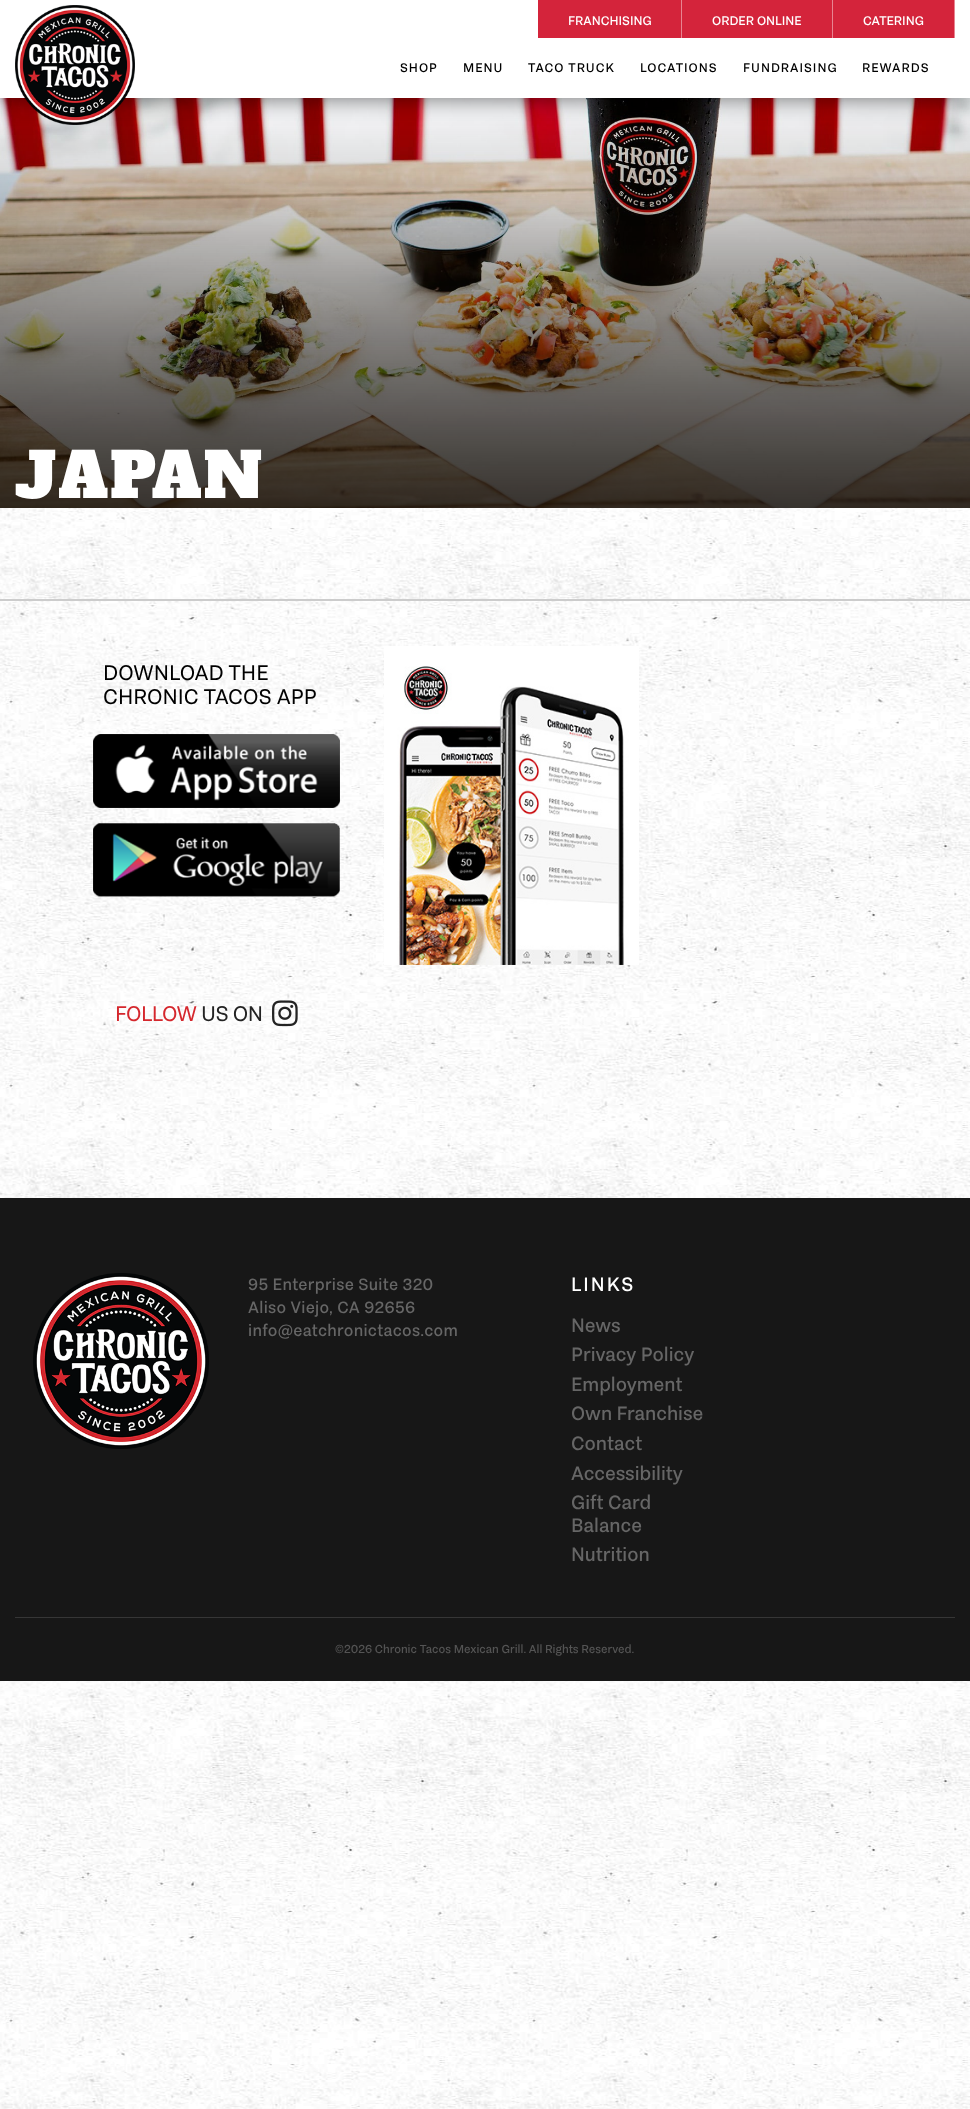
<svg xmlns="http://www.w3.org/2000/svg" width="970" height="2109">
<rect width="100%" height="100%" fill="#fff"/>
<image x="0" y="508" width="970" height="1601" href="media/1.png"/>
<image x="0" y="98" width="970" height="410" href="media/3.png"/>
<rect width="970" height="98" fill="#00000099" filter="blur(12.5px)"/>
<rect width="970" height="98" fill="#fff"/>
<image x="15" y="5" width="120" height="120" href="media/2.png"/>
<rect x="538" width="416" height="38" fill="#d4243b"/>
<rect x="681" width="1" height="38" fill="#e88491"/>
<text x="568" y="25" style="font-family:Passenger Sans;font-size:13px;font-weight:500;fill:#fff">FRANCHISING</text>
<rect x="832" width="1" height="38" fill="#e88491"/>
<text x="712" y="25" style="font-family:Passenger Sans;font-size:13px;font-weight:500;fill:#fff">ORDER ONLINE</text>
<rect x="954" width="1" height="38" fill="#e88491"/>
<text x="863" y="25" style="font-family:Passenger Sans;font-size:13px;font-weight:500;fill:#fff">CATERING</text>
<text x="400" y="72" style="font-family:Passenger Sans;font-size:13px;font-weight:500;letter-spacing:1px;fill:#000">SHOP</text>
<text x="463" y="72" style="font-family:Passenger Sans;font-size:13px;font-weight:500;letter-spacing:1px;fill:#000">MENU</text>
<text x="528" y="72" style="font-family:Passenger Sans;font-size:13px;font-weight:500;letter-spacing:1px;fill:#000">TACO TRUCK</text>
<text x="640" y="72" style="font-family:Passenger Sans;font-size:13px;font-weight:500;letter-spacing:1px;fill:#000">LOCATIONS</text>
<text x="743" y="72" style="font-family:Passenger Sans;font-size:13px;font-weight:500;letter-spacing:1px;fill:#000">FUNDRAISING</text>
<text x="862" y="72" style="font-family:Passenger Sans;font-size:13px;font-weight:500;letter-spacing:1px;fill:#000">REWARDS</text>
<text x="15" y="498" style="font-family:Alfa Slab One;font-size:62px;letter-spacing:2px;fill:#fff">JAPAN</text>
<rect y="1198" width="970" height="483" fill="#171717"/>
<image x="0" y="601" width="970" height="597" href="media/4.png"/>
<rect y="599" width="970" height="2" fill="#ccc"/>
<text x="103" y="680" style="font-family:Passenger Sans;font-size:22px;fill:#000">DOWNLOAD THE</text>
<text x="103" y="704" style="font-family:Passenger Sans;font-size:22px;fill:#000">CHRONIC TACOS APP</text>
<image x="93" y="734" width="247" height="74" href="media/5.png"/>
<image x="93" y="823" width="247" height="74" href="media/6.png"/>
<image x="384" y="646" width="255" height="319" href="media/7.png"/>
<text x="115" y="1021" style="font-family:Passenger Sans;font-size:22px;letter-spacing:-0.5px;fill:#d5272d">FOLLOW</text>
<text x="201" y="1021" style="font-family:Passenger Sans;font-size:22px;letter-spacing:-0.5px;fill:#232323">US ON</text>
<image x="272" y="1000" width="26" height="27" href="media/8.png"/>
<image x="33" y="1273" width="176" height="176" href="media/9.png"/>
<text x="248" y="1290" style="font-family:Passenger Sans;font-size:17px;font-weight:500;letter-spacing:0.3px;fill:#666">95 Enterprise Suite 320</text>
<text x="248" y="1313" style="font-family:Passenger Sans;font-size:17px;font-weight:500;letter-spacing:0.3px;fill:#666">Aliso Viejo, CA 92656</text>
<text x="248" y="1336" style="font-family:Passenger Sans;font-size:17px;font-weight:500;letter-spacing:0.3px;fill:#666">info@eatchronictacos.com</text>
<text x="571" y="1291" style="font-family:Passenger Sans;font-size:20px;font-weight:500;letter-spacing:2px;fill:#fff">LINKS</text>
<text x="571" y="1332" style="font-family:Passenger Sans;font-size:20px;font-weight:500;fill:#666">News</text>
<text x="571" y="1361" style="font-family:Passenger Sans;font-size:20px;font-weight:500;fill:#666">Privacy Policy</text>
<text x="571" y="1391" style="font-family:Passenger Sans;font-size:20px;font-weight:500;fill:#666">Employment</text>
<text x="571" y="1420" style="font-family:Passenger Sans;font-size:20px;font-weight:500;fill:#666">Own Franchise</text>
<text x="571" y="1450" style="font-family:Passenger Sans;font-size:20px;font-weight:500;fill:#666">Contact</text>
<text x="571" y="1480" style="font-family:Passenger Sans;font-size:20px;font-weight:500;fill:#666">Accessibility</text>
<text x="571" y="1509" style="font-family:Passenger Sans;font-size:20px;font-weight:500;fill:#666">Gift Card</text>
<text x="571" y="1532" style="font-family:Passenger Sans;font-size:20px;font-weight:500;fill:#666">Balance</text>
<text x="571" y="1561" style="font-family:Passenger Sans;font-size:20px;font-weight:500;fill:#666">Nutrition</text>
<rect x="15" y="1617" width="940" height="1" fill="#363636"/>
<text x="335" y="1653" style="font-family:Passenger Sans;font-size:12px;font-weight:500;fill:#545454">©2026 Chronic Tacos Mexican Grill. All Rights Reserved.</text>
</svg>
